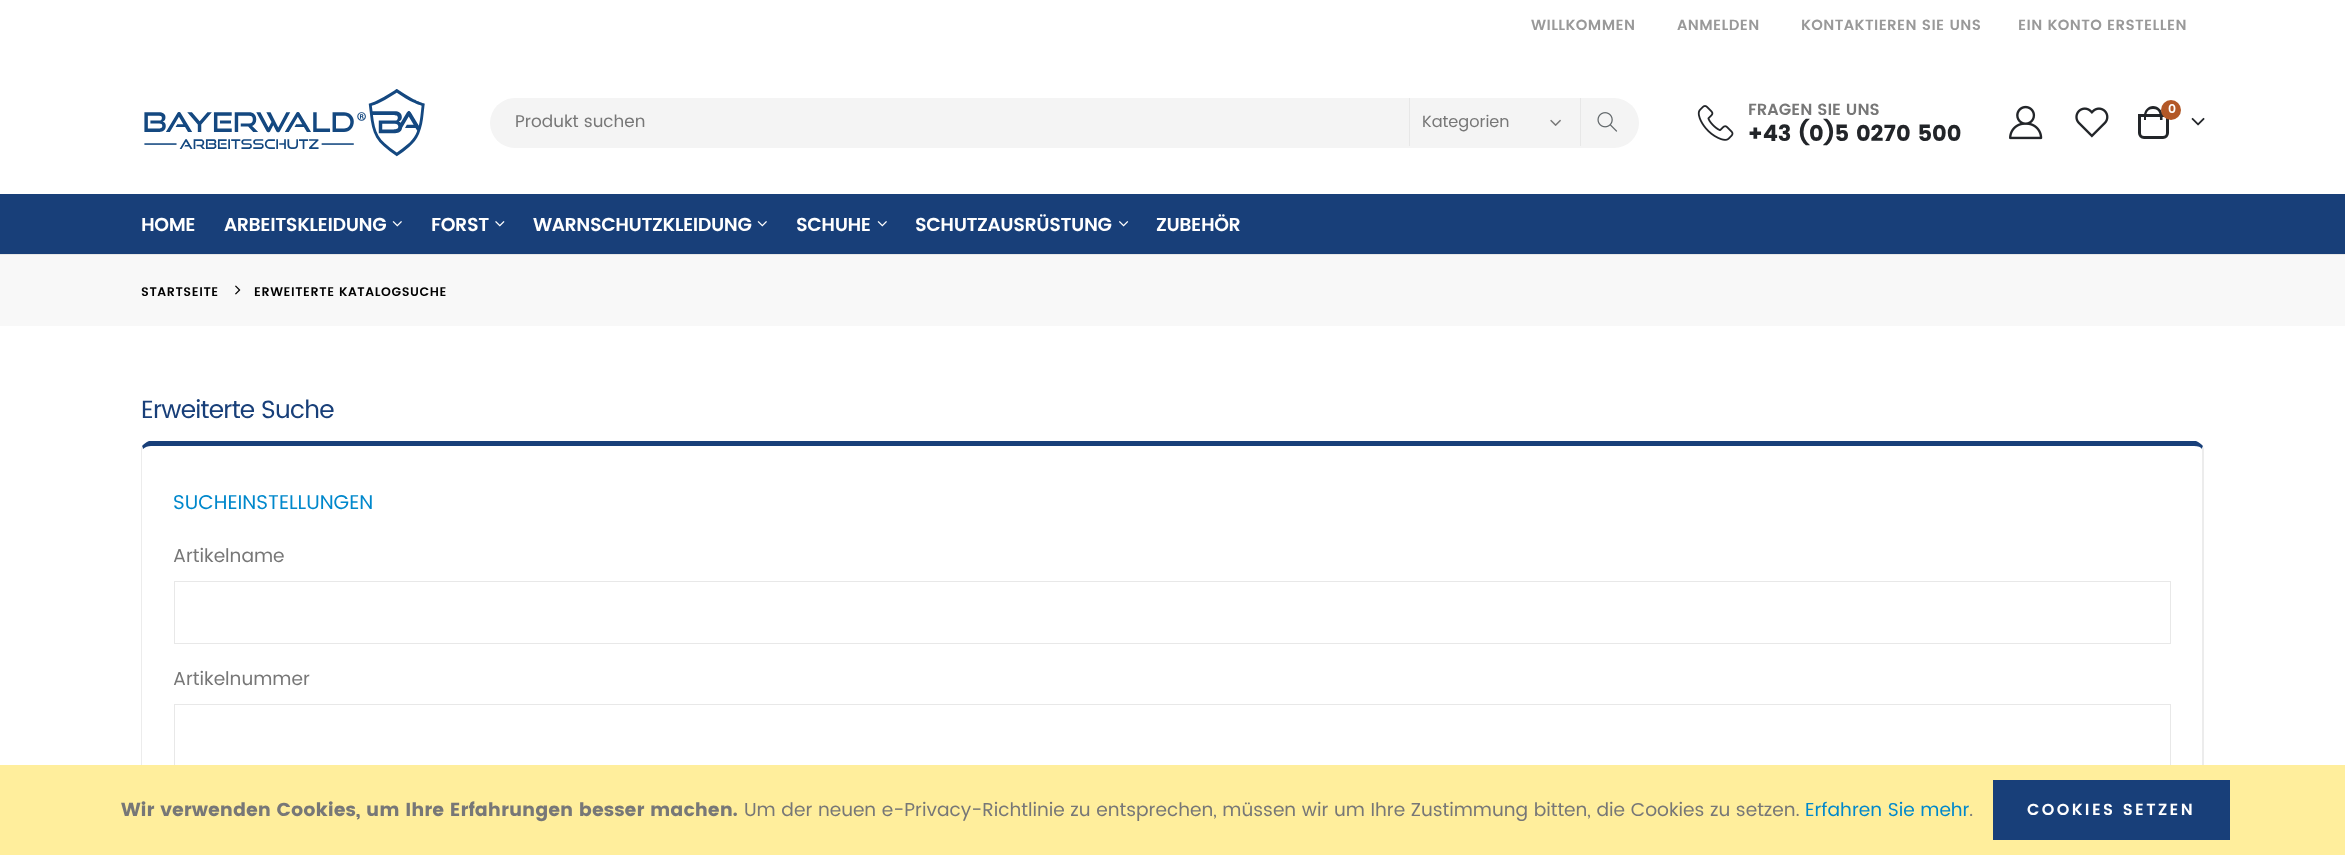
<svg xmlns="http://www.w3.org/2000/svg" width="2345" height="855">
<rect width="100%" height="100%" fill="#fff"/>
<text x="1531" y="30" style="font-family:Poppins;font-size:14.75px;font-weight:600;letter-spacing:0.4px;fill:#999">WILLKOMMEN</text>
<text x="1677" y="30" style="font-family:Poppins;font-size:14.75px;font-weight:600;letter-spacing:0.4px;fill:#999">ANMELDEN</text>
<text x="1801" y="30" style="font-family:Poppins;font-size:14.75px;font-weight:600;letter-spacing:0.4px;fill:#999">KONTAKTIEREN SIE UNS</text>
<text x="2018" y="30" style="font-family:Poppins;font-size:14.75px;font-weight:600;letter-spacing:0.4px;fill:#999">EIN KONTO ERSTELLEN</text>
<image x="144" y="89" width="281" height="68" href="media/1.png"/>
<rect x="490" y="98" width="1149" height="50" rx="25" fill="#f4f4f4"/>
<text x="515" y="127" style="font-family:Poppins;font-size:17px;fill:#777">Produkt suchen</text>
<rect x="1580" y="98" width="1" height="48" fill="#e7e7e7"/>
<rect x="1409" y="98" width="1" height="48" fill="#e7e7e7"/>
<text x="1422" y="127" style="font-family:Poppins;font-size:16.25px;fill:#777">Kategorien</text>
<image x="1550" y="119" width="11" height="7" href="media/2.png"/>
<image x="1597" y="112" width="21" height="20" href="media/3.png"/>
<image x="1697" y="105" width="37" height="36" href="media/4.png"/>
<text x="1748" y="115" style="font-family:Poppins;font-size:16.25px;font-weight:600;fill:#777">FRAGEN SIE UNS</text>
<text x="1748" y="141" style="font-family:Poppins;font-size:22.5px;font-weight:bold;fill:#222529">+43 (0)5 0270 500</text>
<image x="2009" y="105" width="34" height="35" href="media/5.png"/>
<image x="2075" y="107" width="34" height="31" href="media/6.png"/>
<path d="M2139.5 115.5h28v17.5c0 2.5-2 4.5-4.5 4.5h-19c-2.5 0-4.5-2-4.5-4.5z" fill="none" stroke="#222529" stroke-width="3"/>
<path d="M2153 106c5.5 0 9.5 4.5 9.5 9.5v4.5h-18.5v-4.5c0-5 4-9.5 9-9.5zm0 3c7 0 7 6 7 11h-14c0-5 0-11 7-11z" fill="#222529" fill-rule="evenodd"/>
<circle cx="2171" cy="110" r="10" fill="#b35827"/>
<text x="2168" y="113" style="font-family:Poppins;font-size:12.5px;font-weight:600;fill:#fff">0</text>
<image x="2191" y="117" width="14" height="9" href="media/7.png"/>
<rect y="194" width="2345" height="60" fill="#183f79"/>
<text x="141" y="231" style="font-family:Poppins;font-size:18.75px;font-weight:600;letter-spacing:-0.4px;fill:#fff">HOME</text>
<text x="224" y="231" style="font-family:Poppins;font-size:18.75px;font-weight:600;letter-spacing:-0.4px;fill:#fff">ARBEITSKLEIDUNG</text>
<image x="392" y="221" width="10" height="6" href="media/8.png"/>
<text x="431" y="231" style="font-family:Poppins;font-size:18.75px;font-weight:600;letter-spacing:-0.4px;fill:#fff">FORST</text>
<image x="495" y="221" width="10" height="6" href="media/9.png"/>
<text x="533" y="231" style="font-family:Poppins;font-size:18.75px;font-weight:600;letter-spacing:-0.4px;fill:#fff">WARNSCHUTZKLEIDUNG</text>
<image x="757" y="221" width="10" height="6" href="media/8.png"/>
<text x="796" y="231" style="font-family:Poppins;font-size:18.75px;font-weight:600;letter-spacing:-0.4px;fill:#fff">SCHUHE</text>
<image x="877" y="221" width="10" height="6" href="media/8.png"/>
<text x="915" y="231" style="font-family:Poppins;font-size:18.75px;font-weight:600;letter-spacing:-0.4px;fill:#fff">SCHUTZAUSRÜSTUNG</text>
<image x="1119" y="221" width="10" height="6" href="media/10.png"/>
<text x="1156" y="231" style="font-family:Poppins;font-size:18.75px;font-weight:600;letter-spacing:-0.4px;fill:#fff">ZUBEHÖR</text>
<rect y="255" width="2345" height="71" fill="#f8f8f8"/>
<rect y="254" width="2345" height="1" fill="#e7e7e7"/>
<text x="141" y="296" style="font-family:Poppins;font-size:12.5px;font-weight:600;letter-spacing:0.6px;fill:#000">STARTSEITE</text>
<image x="235" y="285" width="6" height="10" href="media/11.png"/>
<text x="254" y="296" style="font-family:Poppins;font-size:12.5px;font-weight:600;letter-spacing:0.6px;fill:#000">ERWEITERTE KATALOGSUCHE</text>
<text x="141" y="418" style="font-family:Poppins;font-size:25px;letter-spacing:-0.75px;fill:#183f79">Erweiterte Suche</text>
<path d="M151 446c-3 0-6 1-8 3l-1-3c2-2 4-4 7-5h2047c3 1 5 3 7 5l-1 3c-1-2-4-3-8-3z" fill="#183f79"/>
<path d="M2204 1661c-1 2-2 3-3 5l-1-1c1-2 2-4 2-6v-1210l1-3l1 3z" fill="#ececec"/>
<path d="M141 449l1-3l1 3c-1 0-1 1-1 2v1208c0 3 1 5 3 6l-1 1c-1-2-2-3-3-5z" fill="#ececec"/>
<text x="173" y="509" style="font-family:Poppins;font-size:20px;fill:#08c">SUCHEINSTELLUNGEN</text>
<text x="173" y="562" style="font-family:Poppins;font-size:18.75px;fill:#777">Artikelname</text>
<rect x="174.5" y="581.5" width="1996" height="62" fill="none" stroke="#e8e8e8"/>
<text x="173" y="685" style="font-family:Poppins;font-size:18.75px;fill:#777">Artikelnummer</text>
<rect x="174.5" y="704.5" width="1996" height="61" fill="none" stroke="#e8e8e8"/>
<rect y="765" width="2345" height="90" fill="#ffee9c"/>
<text x="121" y="816" style="font-family:Poppins;font-size:18.75px;font-weight:bold;fill:#777">Wir verwenden Cookies, um Ihre Erfahrungen besser machen.</text>
<text x="744" y="816" style="font-family:Poppins;font-size:18.75px;fill:#777">Um der neuen e-Privacy-Richtlinie zu entsprechen, müssen wir um Ihre Zustimmung bitten, die Cookies zu setzen.</text>
<text x="1805" y="816" style="font-family:Poppins;font-size:18.75px;fill:#08c">Erfahren Sie mehr</text>
<text x="1969" y="816" style="font-family:Poppins;font-size:18.75px;fill:#777">.</text>
<rect x="1993" y="780" width="237" height="60" fill="#183f79"/>
<text x="2027" y="815" style="font-family:Poppins;font-size:16px;font-weight:600;letter-spacing:2.4px;fill:#fff">COOKIES SETZEN</text>
</svg>
